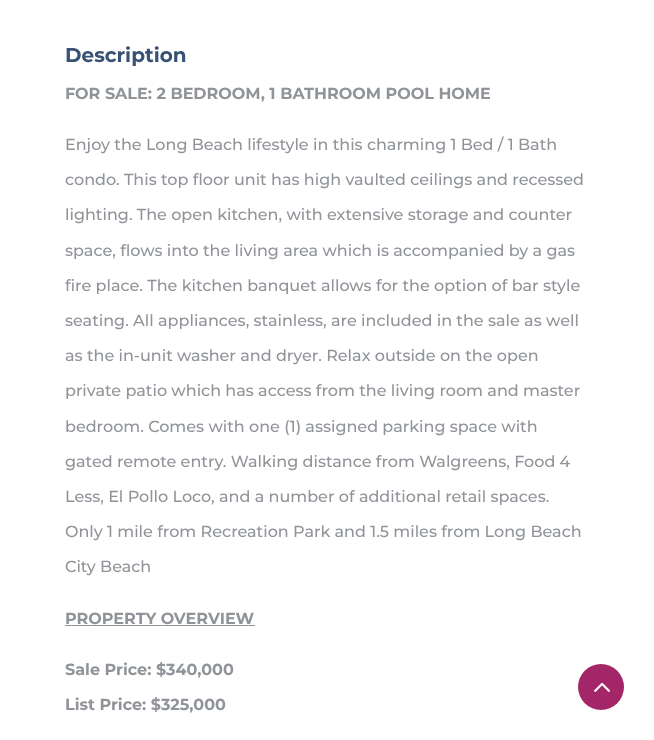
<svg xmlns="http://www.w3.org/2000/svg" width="654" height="740">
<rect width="100%" height="100%" fill="#fff"/>
<text x="65" y="62" style="font-family:Montserrat;font-size:20px;font-weight:100;fill:#375274">Description</text>
<text x="65" y="99" style="font-family:Montserrat;font-size:16px;font-weight:100;fill:#909499">FOR SALE: 2 BEDROOM, 1 BATHROOM POOL HOME</text>
<text x="65" y="150" style="font-family:'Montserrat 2';font-size:16px;font-weight:100;fill:#909499">Enjoy the Long Beach lifestyle in this charming 1 Bed / 1 Bath</text>
<text x="65" y="185" style="font-family:'Montserrat 2';font-size:16px;font-weight:100;fill:#909499">condo. This top floor unit has high vaulted ceilings and recessed</text>
<text x="65" y="220" style="font-family:'Montserrat 2';font-size:16px;font-weight:100;fill:#909499">lighting. The open kitchen, with extensive storage and counter</text>
<text x="65" y="256" style="font-family:'Montserrat 2';font-size:16px;font-weight:100;fill:#909499">space, flows into the living area which is accompanied by a gas</text>
<text x="65" y="291" style="font-family:'Montserrat 2';font-size:16px;font-weight:100;fill:#909499">fire place. The kitchen banquet allows for the option of bar style</text>
<text x="65" y="326" style="font-family:'Montserrat 2';font-size:16px;font-weight:100;fill:#909499">seating. All appliances, stainless, are included in the sale as well</text>
<text x="65" y="361" style="font-family:'Montserrat 2';font-size:16px;font-weight:100;fill:#909499">as the in-unit washer and dryer. Relax outside on the open</text>
<text x="65" y="396" style="font-family:'Montserrat 2';font-size:16px;font-weight:100;fill:#909499">private patio which has access from the living room and master</text>
<text x="65" y="432" style="font-family:'Montserrat 2';font-size:16px;font-weight:100;fill:#909499">bedroom. Comes with one (1) assigned parking space with</text>
<text x="65" y="467" style="font-family:'Montserrat 2';font-size:16px;font-weight:100;fill:#909499">gated remote entry. Walking distance from Walgreens, Food 4</text>
<text x="65" y="502" style="font-family:'Montserrat 2';font-size:16px;font-weight:100;fill:#909499">Less, El Pollo Loco, and a number of additional retail spaces.</text>
<text x="65" y="537" style="font-family:'Montserrat 2';font-size:16px;font-weight:100;fill:#909499">Only 1 mile from Recreation Park and 1.5 miles from Long Beach</text>
<text x="65" y="572" style="font-family:'Montserrat 2';font-size:16px;font-weight:100;fill:#909499">City Beach</text>
<text x="65" y="624" style="font-family:Montserrat;font-size:16px;font-weight:100;fill:#909499">PROPERTY OVERVIEW</text>
<rect x="65" y="625" width="190" height="1" fill="#909499"/>
<text x="65" y="675" style="font-family:Montserrat;font-size:16px;font-weight:100;fill:#909499">Sale Price: $340,000</text>
<text x="65" y="710" style="font-family:Montserrat;font-size:16px;font-weight:100;fill:#909499">List Price: $325,000</text>
<circle cx="601" cy="687" r="23" fill="#a32668"/>
<image x="594" y="682" width="16" height="10" href="media/1.png"/>
</svg>
